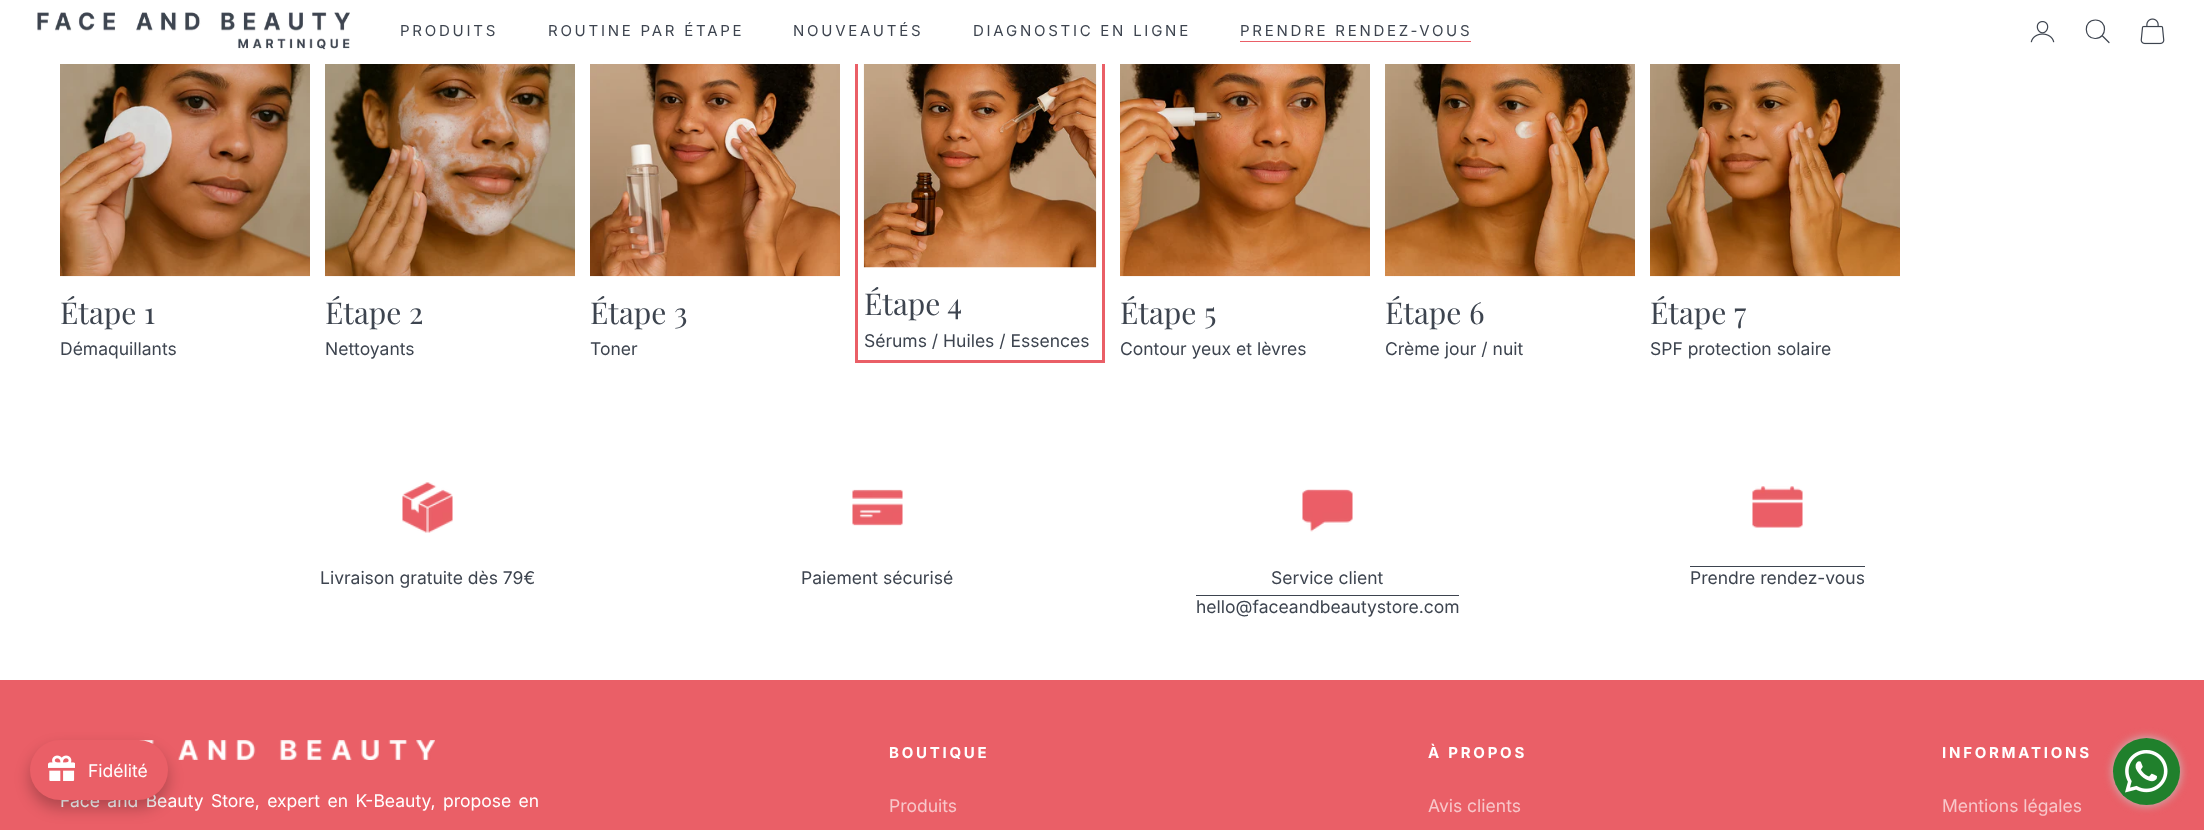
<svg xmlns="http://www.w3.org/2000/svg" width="2204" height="830">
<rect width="100%" height="100%" fill="#fff"/>
<rect x="856.5" y="27.5" width="247" height="334" fill="none" stroke="#ea5f67" stroke-width="3"/>
<rect x="855" y="26" width="250" height="38" fill="#fff"/>
<image x="37" y="12" width="313" height="38" href="media/1.png"/>
<text x="400" y="36" style="font-family:Inter;font-size:15px;letter-spacing:2.75px;fill:#3d444f">PRODUITS</text>
<text x="548" y="36" style="font-family:Inter;font-size:15px;letter-spacing:2.75px;fill:#3d444f">ROUTINE PAR ÉTAPE</text>
<text x="793" y="36" style="font-family:Inter;font-size:15px;letter-spacing:2.75px;fill:#3d444f">NOUVEAUTÉS</text>
<text x="973" y="36" style="font-family:Inter;font-size:15px;letter-spacing:2.75px;fill:#3d444f">DIAGNOSTIC EN LIGNE</text>
<text x="1240" y="36" style="font-family:Inter;font-size:15px;letter-spacing:2.75px;fill:#3d444f">PRENDRE RENDEZ-VOUS</text>
<rect x="1240" y="41" width="231" height="1" fill="#ea5f67"/>
<image x="2030" y="21" width="25" height="22" href="media/2.png"/>
<path d="M2095.5 20c-12.5 0-12 19 0 18.5c12-.5 12-18.5 0-18.5z" fill="none" stroke="#3d444f" stroke-width="1.2"/>
<path d="M2102.5 36l6.5 6.5" fill="none" stroke="#3d444f" stroke-width="1.2" stroke-linecap="round"/>
<image x="2140" y="18" width="25" height="27" href="media/3.png"/>
<image x="60" y="64" width="250" height="213" href="media/4.png"/>
<text x="60" y="324" style="font-family:Playfair Display;font-size:30px;fill:#3d444f">Étape 1</text>
<text x="60" y="355" style="font-family:Inter;font-size:17.5px;fill:#3d444f">Démaquillants</text>
<image x="325" y="64" width="250" height="213" href="media/5.png"/>
<text x="325" y="324" style="font-family:Playfair Display;font-size:30px;fill:#3d444f">Étape 2</text>
<text x="325" y="355" style="font-family:Inter;font-size:17.5px;fill:#3d444f">Nettoyants</text>
<image x="590" y="64" width="250" height="213" href="media/6.png"/>
<text x="590" y="324" style="font-family:Playfair Display;font-size:30px;fill:#3d444f">Étape 3</text>
<text x="590" y="355" style="font-family:Inter;font-size:17.5px;fill:#3d444f">Toner</text>
<image x="863" y="64" width="234" height="204" href="media/7.png"/>
<text x="864" y="315" style="font-family:Playfair Display;font-size:30px;fill:#3d444f">Étape 4</text>
<text x="864" y="347" style="font-family:Inter;font-size:17.5px;fill:#3d444f">Sérums / Huiles / Essences</text>
<image x="1120" y="64" width="250" height="213" href="media/8.png"/>
<text x="1120" y="324" style="font-family:Playfair Display;font-size:30px;fill:#3d444f">Étape 5</text>
<text x="1120" y="355" style="font-family:Inter;font-size:17.5px;fill:#3d444f">Contour yeux et lèvres</text>
<image x="1385" y="64" width="250" height="213" href="media/9.png"/>
<text x="1385" y="324" style="font-family:Playfair Display;font-size:30px;fill:#3d444f">Étape 6</text>
<text x="1385" y="355" style="font-family:Inter;font-size:17.5px;fill:#3d444f">Crème jour / nuit</text>
<image x="1650" y="64" width="250" height="213" href="media/10.png"/>
<text x="1650" y="324" style="font-family:Playfair Display;font-size:30px;fill:#3d444f">Étape 7</text>
<text x="1650" y="355" style="font-family:Inter;font-size:17.5px;fill:#3d444f">SPF protection solaire</text>
<image x="402" y="482" width="51" height="51" href="media/11.png"/>
<text x="320" y="584" style="font-family:Inter;font-size:17.5px;fill:#3d444f">Livraison gratuite dès 79€</text>
<image x="852" y="489" width="51" height="37" href="media/12.png"/>
<text x="801" y="584" style="font-family:Inter;font-size:17.5px;fill:#3d444f">Paiement sécurisé</text>
<image x="1302" y="489" width="51" height="43" href="media/13.png"/>
<text x="1271" y="584" style="font-family:Inter;font-size:17.5px;fill:#3d444f">Service client</text>
<text x="1196" y="613" style="font-family:Inter;font-size:17.5px;fill:#3d444f">hello@faceandbeautystore.com</text>
<rect x="1196" y="595" width="263" height="1" fill="#3d444f"/>
<image x="1752" y="486" width="51" height="42" href="media/14.png"/>
<text x="1690" y="584" style="font-family:Inter;font-size:17.5px;fill:#3d444f">Prendre rendez-vous</text>
<rect x="1690" y="566" width="175" height="1" fill="#3d444f"/>
<rect y="680" width="2204" height="150" fill="#ea5f67"/>
<image x="138" y="740" width="297" height="20" href="media/15.png"/>
<text x="60" y="807" word-spacing="2.5" style="font-family:Inter;font-size:17.5px;fill:#fff">Face and Beauty Store, expert en K-Beauty, propose en</text>
<text x="889" y="758" style="font-family:Inter;font-size:15px;font-weight:bold;letter-spacing:2.75px;fill:#fff">BOUTIQUE</text>
<text x="889" y="812" style="font-family:Inter;font-size:17.5px;fill:#f8c7ca">Produits</text>
<text x="1428" y="758" style="font-family:Inter;font-size:15px;font-weight:bold;letter-spacing:2.75px;fill:#fff">À PROPOS</text>
<text x="1428" y="812" style="font-family:Inter;font-size:17.5px;fill:#f8c7ca">Avis clients</text>
<text x="1942" y="758" style="font-family:Inter;font-size:15px;font-weight:bold;letter-spacing:2.75px;fill:#fff">INFORMATIONS</text>
<text x="1942" y="812" style="font-family:Inter;font-size:17.5px;fill:#f8c7ca">Mentions légales</text>
<rect x="2113" y="738" width="67" height="67" rx="33.5" fill="#c2c2c2" filter="blur(5px)"/>
<circle cx="2146.5" cy="771.5" r="33.5" fill="#20802c"/>
<image x="2125" y="750" width="43" height="43" href="media/16.png"/>
<rect x="30" y="748" width="138" height="60" rx="30" fill="#00000040" filter="blur(7.5px)"/>
<rect x="30" y="740" width="138" height="60" rx="30" fill="#ea5f67"/>
<image x="48" y="755" width="27" height="26" href="media/17.png"/>
<text x="88" y="777" style="font-family:Inter;font-size:17.5px;fill:#fff">Fidélité</text>
</svg>
